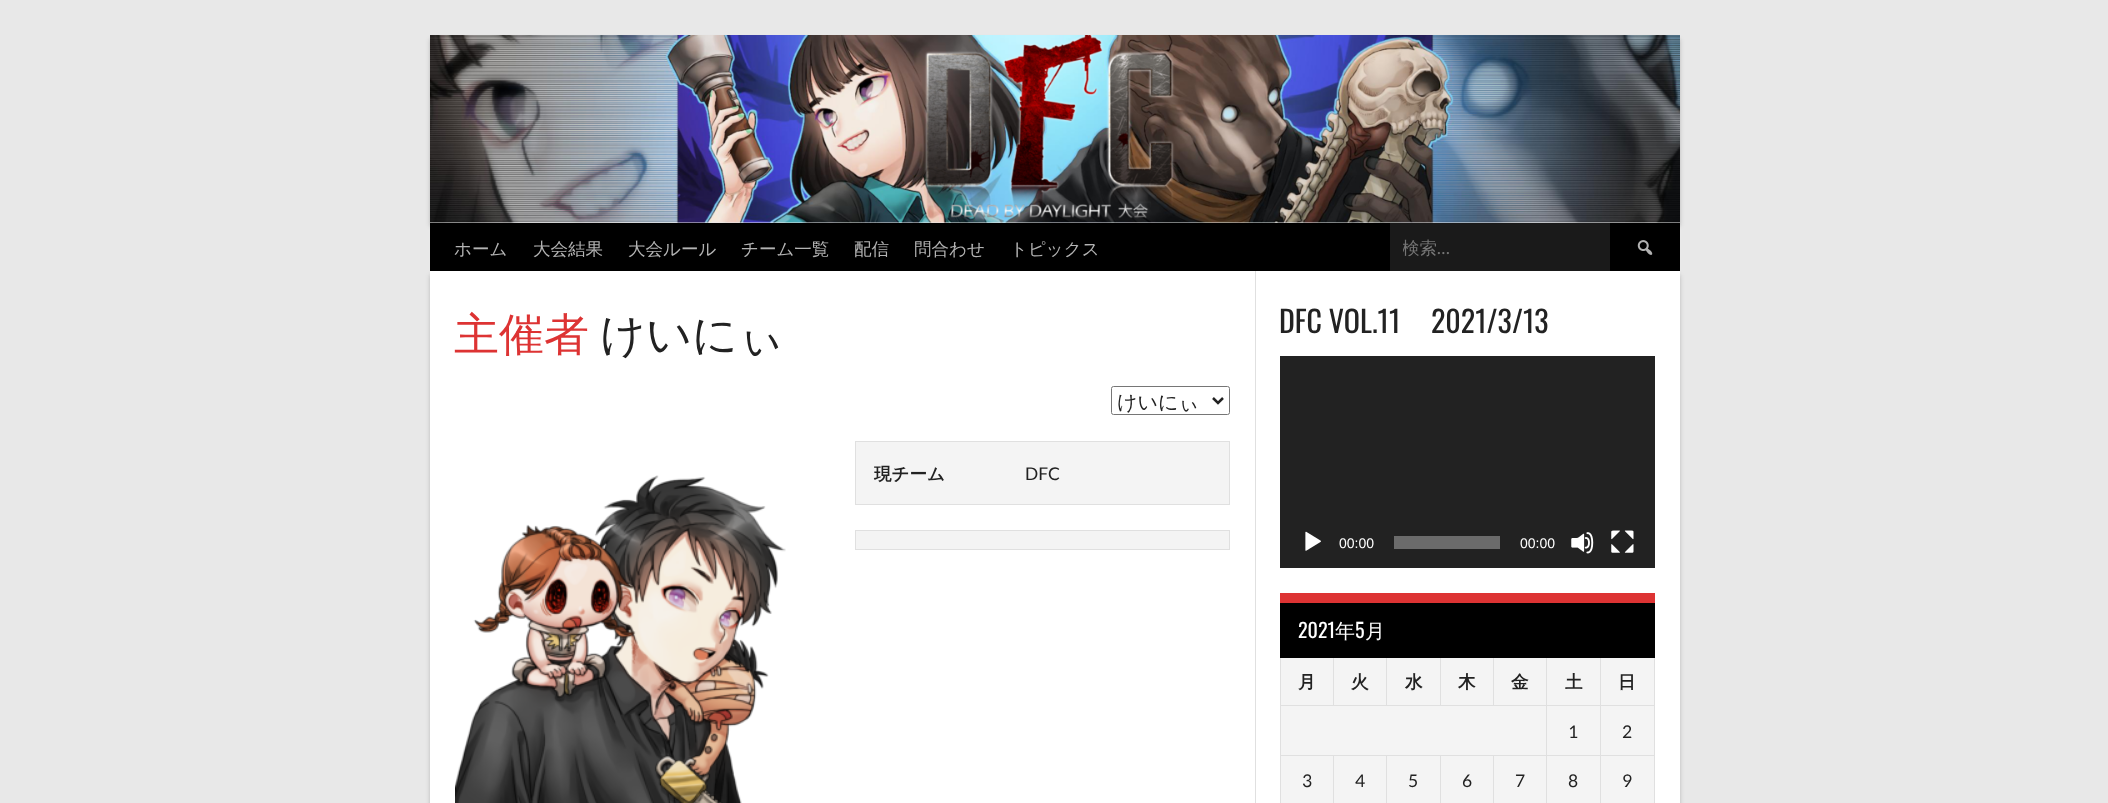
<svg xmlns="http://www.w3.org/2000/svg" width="2108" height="803">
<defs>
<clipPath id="clip1"><path d="M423 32h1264v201h-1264zm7 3h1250v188h-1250z" clip-rule="evenodd"/></clipPath>
<clipPath id="clip2"><rect x="1403" y="236" width="177" height="24"/></clipPath>
</defs>
<rect width="100%" height="100%" fill="#e8e8e8"/>
<image x="430" y="35" width="1250" height="188" href="media/1.png"/>
<g clip-path="url(#clip1)">
<rect x="430" y="39" width="1250" height="187" fill="#00000033" filter="blur(2px)"/>
</g>
<rect x="430" y="275" width="1250" height="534" fill="#00000033" filter="blur(2px)"/>
<rect x="430" y="223" width="1250" height="48" fill="#000"/>
<text x="454" y="255" style="font-family:WenQuanYi Zen Hei;font-size:17.5px;font-weight:500;fill:#b3b3b3">ホーム</text>
<text x="533" y="255" style="font-family:WenQuanYi Zen Hei;font-size:17.5px;font-weight:500;fill:#b3b3b3">大会結果</text>
<text x="628" y="255" style="font-family:WenQuanYi Zen Hei;font-size:17.5px;font-weight:500;fill:#b3b3b3">大会ルール</text>
<text x="741" y="255" style="font-family:WenQuanYi Zen Hei;font-size:17.5px;font-weight:500;fill:#b3b3b3">チーム一覧</text>
<text x="854" y="255" style="font-family:WenQuanYi Zen Hei;font-size:17.5px;font-weight:500;fill:#b3b3b3">配信</text>
<text x="914" y="255" style="font-family:WenQuanYi Zen Hei;font-size:17.5px;font-weight:500;fill:#b3b3b3">問合わせ</text>
<text x="1010" y="255" style="font-family:WenQuanYi Zen Hei;font-size:17.5px;font-weight:500;fill:#b3b3b3">トピックス</text>
<rect x="1390" y="223" width="220" height="48" fill="#1a1a1a"/>
<g clip-path="url(#clip2)">
<text x="1402" y="254" style="font-family:WenQuanYi Zen Hei;font-size:17.5px;font-weight:500;fill:#757575">検索</text>
</g>
<text x="1437" y="254" style="font-family:Lato;font-size:17.5px;fill:#757575">…</text>
<image x="1637" y="240" width="16" height="15" href="media/2.png"/>
<rect x="430" y="271" width="1250" height="532" fill="#fff"/>
<path d="M431 271h824v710h1v-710z" fill="#e0e0e0"/>
<text x="454" y="350" style="font-family:WenQuanYi Zen Hei;font-size:45px;font-weight:500;fill:#d33">主催者</text>
<text x="600" y="350" style="font-family:WenQuanYi Zen Hei;font-size:45px;font-weight:500;fill:#222">けいにぃ</text>
<rect x="1111.5" y="386.5" width="118" height="28" rx="2" fill="none" stroke="#767676"/>
<path d="M1213 398l5 5l5-5" fill="none" stroke="#222" stroke-width="2.5"/>
<text x="1117" y="409" style="font-family:WenQuanYi Zen Hei;font-size:20px;font-weight:500;fill:#222">けいにぃ</text>
<image x="455" y="475" width="331" height="328" href="media/3.png"/>
<rect x="855.5" y="441.5" width="374" height="63" fill="#f4f4f4" stroke="#e0e0e0"/>
<text x="874" y="480" style="font-family:WenQuanYi Zen Hei;font-size:17.5px;font-weight:bold;fill:#222">現チーム</text>
<text x="1025" y="480" style="font-family:Lato;font-size:17.5px;fill:#222">DFC</text>
<rect x="855.5" y="530.5" width="374" height="19" fill="#f4f4f4" stroke="#e0e0e0"/>
<text x="1279" y="333" style="font-family:Oswald;font-size:30px;fill:#222">DFC VOL.11</text>
<text x="1431" y="333" style="font-family:Oswald;font-size:30px;fill:#222">2021/3/13</text>
<rect x="1280" y="356" width="375" height="212" fill="#222"/>
<image x="1305" y="531" width="16" height="20" href="media/4.png"/>
<text x="1339" y="548" style="font-family:Liberation Sans;font-size:14px;fill:#fff">00:00</text>
<rect x="1394" y="536" width="106" height="13" fill="#6b6b6b"/>
<text x="1520" y="548" style="font-family:Liberation Sans;font-size:14px;fill:#fff">00:00</text>
<image x="1571" y="532" width="23" height="22" href="media/5.png"/>
<image x="1611" y="530" width="23" height="23" href="media/6.png"/>
<rect x="1281" y="658" width="373" height="145" fill="#f4f4f4"/>
<rect x="1654" y="658" width="1" height="145" fill="#e0e0e0"/>
<rect x="1280" y="658" width="1" height="145" fill="#e0e0e0"/>
<rect x="1600" y="705" width="55" height="1" fill="#e0e0e0"/>
<rect x="1600" y="755" width="55" height="1" fill="#e0e0e0"/>
<rect x="1600" y="755" width="1" height="48" fill="#e0e0e0"/>
<rect x="1546" y="755" width="55" height="1" fill="#e0e0e0"/>
<rect x="1600" y="705" width="1" height="51" fill="#e0e0e0"/>
<rect x="1546" y="705" width="55" height="1" fill="#e0e0e0"/>
<rect x="1546" y="755" width="1" height="48" fill="#e0e0e0"/>
<rect x="1493" y="755" width="55" height="1" fill="#e0e0e0"/>
<rect x="1546" y="705" width="1" height="51" fill="#e0e0e0"/>
<rect x="1280" y="705" width="268" height="1" fill="#e0e0e0"/>
<rect x="1333" y="656" width="1" height="50" fill="#e0e0e0"/>
<rect x="1386" y="656" width="1" height="50" fill="#e0e0e0"/>
<rect x="1440" y="656" width="1" height="50" fill="#e0e0e0"/>
<rect x="1493" y="656" width="1" height="50" fill="#e0e0e0"/>
<rect x="1546" y="656" width="1" height="50" fill="#e0e0e0"/>
<rect x="1600" y="656" width="1" height="50" fill="#e0e0e0"/>
<rect x="1280" y="603" width="375" height="55" fill="#000"/>
<rect x="1280" y="593" width="375" height="10" fill="#d33"/>
<text x="1298" y="638" style="font-family:Oswald;font-size:20px;fill:#fff">2021</text>
<text x="1335" y="638" style="font-family:WenQuanYi Zen Hei;font-size:20px;font-weight:500;fill:#fff">年</text>
<text x="1355" y="638" style="font-family:Oswald;font-size:20px;fill:#fff">5</text>
<text x="1365" y="638" style="font-family:WenQuanYi Zen Hei;font-size:20px;font-weight:500;fill:#fff">月</text>
<text x="1298" y="688" style="font-family:WenQuanYi Zen Hei;font-size:17.5px;font-weight:bold;fill:#222">月</text>
<text x="1351" y="688" style="font-family:WenQuanYi Zen Hei;font-size:17.5px;font-weight:bold;fill:#222">火</text>
<text x="1405" y="688" style="font-family:WenQuanYi Zen Hei;font-size:17.5px;font-weight:bold;fill:#222">水</text>
<text x="1458" y="688" style="font-family:WenQuanYi Zen Hei;font-size:17.5px;font-weight:bold;fill:#222">木</text>
<text x="1511" y="688" style="font-family:WenQuanYi Zen Hei;font-size:17.5px;font-weight:bold;fill:#222">金</text>
<text x="1565" y="688" style="font-family:WenQuanYi Zen Hei;font-size:17.5px;font-weight:bold;fill:#222">土</text>
<text x="1618" y="688" style="font-family:WenQuanYi Zen Hei;font-size:17.5px;font-weight:bold;fill:#222">日</text>
<text x="1568" y="738" style="font-family:Lato;font-size:17.5px;fill:#222">1</text>
<text x="1622" y="738" style="font-family:Lato;font-size:17.5px;fill:#222">2</text>
<rect x="1493" y="755" width="1" height="48" fill="#e0e0e0"/>
<rect x="1440" y="755" width="54" height="1" fill="#e0e0e0"/>
<rect x="1440" y="755" width="1" height="48" fill="#e0e0e0"/>
<rect x="1386" y="755" width="55" height="1" fill="#e0e0e0"/>
<rect x="1386" y="755" width="1" height="48" fill="#e0e0e0"/>
<rect x="1333" y="755" width="55" height="1" fill="#e0e0e0"/>
<rect x="1333" y="755" width="1" height="48" fill="#e0e0e0"/>
<rect x="1280" y="755" width="54" height="1" fill="#e0e0e0"/>
<text x="1302" y="787" style="font-family:Lato;font-size:17.5px;fill:#222">3</text>
<text x="1355" y="787" style="font-family:Lato;font-size:17.5px;fill:#222">4</text>
<text x="1408" y="787" style="font-family:Lato;font-size:17.5px;fill:#222">5</text>
<text x="1462" y="787" style="font-family:Lato;font-size:17.5px;fill:#222">6</text>
<text x="1515" y="787" style="font-family:Lato;font-size:17.5px;fill:#222">7</text>
<text x="1568" y="787" style="font-family:Lato;font-size:17.5px;fill:#222">8</text>
<text x="1622" y="787" style="font-family:Lato;font-size:17.5px;fill:#222">9</text>
</svg>
